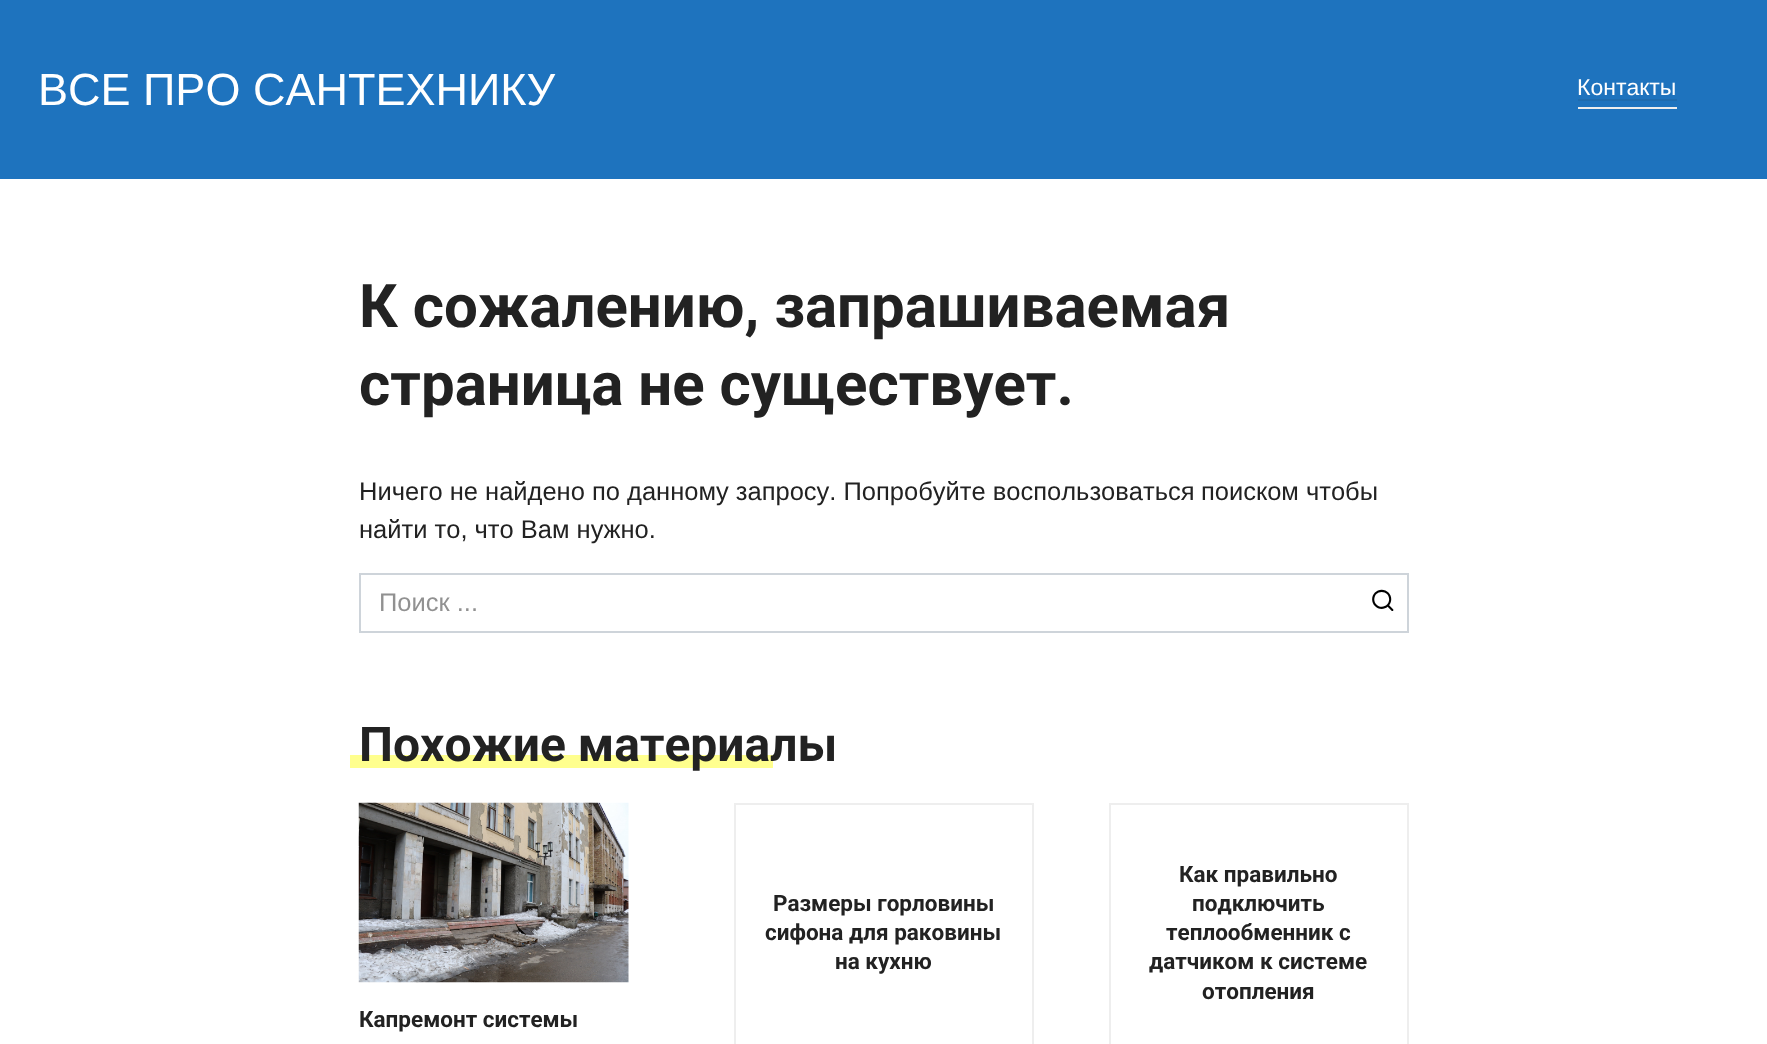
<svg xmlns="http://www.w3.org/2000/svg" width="1767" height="1044">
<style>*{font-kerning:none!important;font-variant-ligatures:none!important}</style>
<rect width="100%" height="100%" fill="#fff"/>
<rect width="1767" height="179" fill="#1e73be"/>
<text x="38" y="105" style="font-family:Liberation Sans;font-size:45px;fill:#fff">ВСЕ ПРО САНТЕХНИКУ</text>
<rect x="1578" y="107" width="99" height="2" fill="#eee"/>
<text x="1577" y="95" style="font-family:Liberation Sans;font-size:23px;fill:#fff">Контакты</text>
<rect x="1578" y="99" width="99" height="2" fill="#1e6bae"/>
<text x="359" y="327" style="font-family:Roboto;font-size:60px;font-weight:bold;fill:#222">К сожалению, запрашиваемая</text>
<text x="359" y="405" style="font-family:Roboto;font-size:60px;font-weight:bold;fill:#222">страница не существует.</text>
<text x="359" y="500" style="font-family:Liberation Sans;font-size:25.5px;fill:#222">Ничего не найдено по данному запросу. Попробуйте воспользоваться</text>
<text x="1201" y="500" style="font-family:Liberation Sans;font-size:25.5px;fill:#222">поиском чтобы</text>
<text x="359" y="538" style="font-family:Liberation Sans;font-size:25.5px;fill:#222">найти то, что Вам нужно.</text>
<rect x="360" y="574" width="1048" height="58" fill="none" stroke="#ced4da" stroke-width="2"/>
<text x="379" y="611" style="font-family:Liberation Sans;font-size:25.5px;fill:#919191">Поиск ...</text>
<text x="1370" y="611" style="font-family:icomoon;font-size:25.5px;fill:#000">🔍</text>
<rect x="350" y="755" width="423" height="13" fill="#ffff8e"/>
<text x="359" y="761" style="font-family:Roboto;font-size:48px;font-weight:bold;fill:#222">Похожие материалы</text>
<rect x="735" y="804" width="298" height="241" fill="none" stroke="#eee" stroke-width="2"/>
<text x="773" y="911" style="font-family:Roboto;font-size:22.5px;font-weight:bold;fill:#222">Размеры горловины</text>
<text x="765" y="940" style="font-family:Roboto;font-size:22.5px;font-weight:bold;fill:#222">сифона для раковины</text>
<text x="835" y="969" style="font-family:Roboto;font-size:22.5px;font-weight:bold;fill:#222">на кухню</text>
<rect x="1110" y="804" width="298" height="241" fill="none" stroke="#eee" stroke-width="2"/>
<text x="1179" y="882" style="font-family:Roboto;font-size:22.5px;font-weight:bold;fill:#222">Как правильно</text>
<text x="1192" y="911" style="font-family:Roboto;font-size:22.5px;font-weight:bold;fill:#222">подключить</text>
<text x="1166" y="940" style="font-family:Roboto;font-size:22.5px;font-weight:bold;fill:#222">теплообменник с</text>
<text x="1149" y="969" style="font-family:Roboto;font-size:22.5px;font-weight:bold;fill:#222">датчиком к системе</text>
<text x="1202" y="999" style="font-family:Roboto;font-size:22.5px;font-weight:bold;fill:#222">отопления</text>
<image x="358" y="802" width="271" height="181" href="media/1.png"/>
<text x="359" y="1027" style="font-family:Roboto;font-size:22.5px;font-weight:bold;fill:#222">Капремонт системы</text>
</svg>
